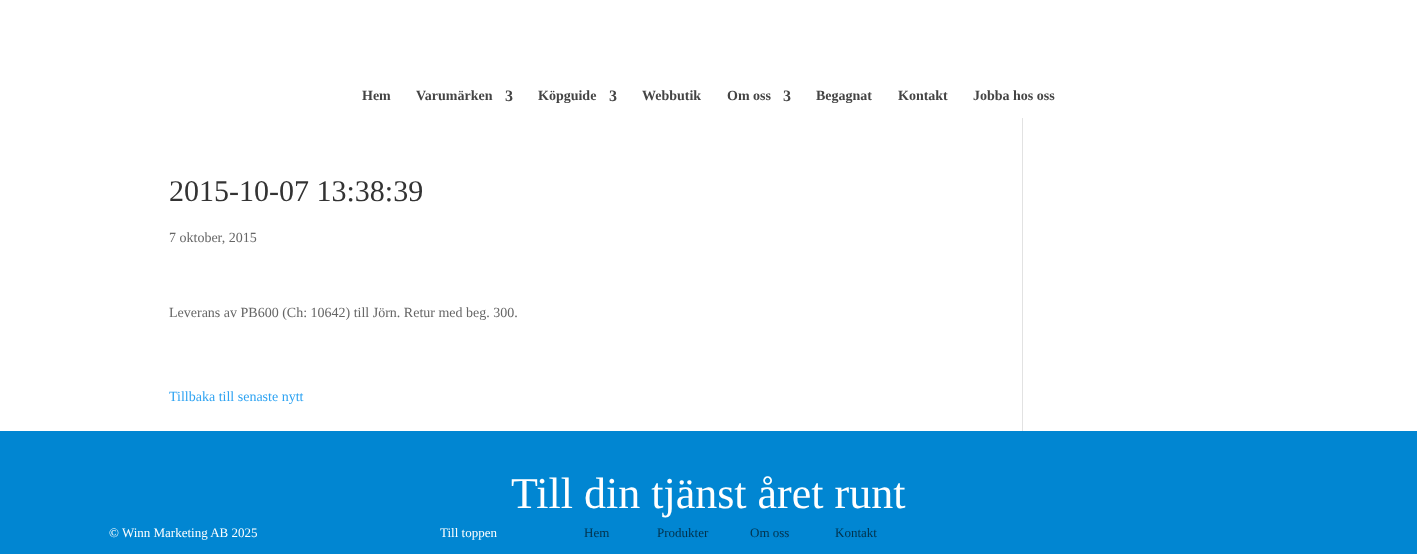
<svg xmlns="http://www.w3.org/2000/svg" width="1417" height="554">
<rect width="100%" height="100%" fill="#fff"/>
<text x="362" y="100" style="font-family:Liberation Serif;font-size:14px;font-weight:bold;fill:#444">Hem</text>
<text x="416" y="100" style="font-family:Liberation Serif;font-size:14px;font-weight:bold;fill:#444">Varumärken</text>
<text x="505" y="101" style="font-family:Liberation Serif;font-size:16px;font-weight:bold;fill:#444">3</text>
<text x="538" y="100" style="font-family:Liberation Serif;font-size:14px;font-weight:bold;fill:#444">Köpguide</text>
<text x="609" y="101" style="font-family:Liberation Serif;font-size:16px;font-weight:bold;fill:#444">3</text>
<text x="642" y="100" style="font-family:Liberation Serif;font-size:14px;font-weight:bold;fill:#444">Webbutik</text>
<text x="727" y="100" style="font-family:Liberation Serif;font-size:14px;font-weight:bold;fill:#444">Om oss</text>
<text x="783" y="101" style="font-family:Liberation Serif;font-size:16px;font-weight:bold;fill:#444">3</text>
<text x="816" y="100" style="font-family:Liberation Serif;font-size:14px;font-weight:bold;fill:#444">Begagnat</text>
<text x="898" y="100" style="font-family:Liberation Serif;font-size:14px;font-weight:bold;fill:#444">Kontakt</text>
<text x="973" y="100" style="font-family:Liberation Serif;font-size:14px;font-weight:bold;fill:#444">Jobba hos oss</text>
<text x="169" y="201" style="font-family:Liberation Serif;font-size:30px;fill:#333">2015-10-07 13:38:39</text>
<text x="169" y="242" style="font-family:Liberation Serif;font-size:14px;fill:#666">7 oktober, 2015</text>
<text x="169" y="317" style="font-family:Liberation Serif;font-size:14px;fill:#666">Leverans av PB600 (Ch: 10642) till Jörn. Retur med beg. 300.</text>
<text x="169" y="401" style="font-family:Liberation Serif;font-size:14px;fill:#2ea3f2">Tillbaka till senaste nytt</text>
<rect x="1022" y="118" width="1" height="313" fill="#e2e2e2"/>
<rect y="431" width="1417" height="123" fill="#0186d2"/>
<text x="511" y="508" style="font-family:Liberation Serif;font-size:44px;fill:#fff">Till din tjänst året runt</text>
<text x="109" y="537" style="font-family:Liberation Serif;font-size:13px;fill:#fff">© Winn Marketing AB 2025</text>
<text x="440" y="537" style="font-family:Liberation Serif;font-size:13px;fill:#fff">Till toppen</text>
<text x="584" y="537" style="font-family:Liberation Serif;font-size:13px;fill:#03324c">Hem</text>
<text x="657" y="537" style="font-family:Liberation Serif;font-size:13px;fill:#03324c">Produkter</text>
<text x="750" y="537" style="font-family:Liberation Serif;font-size:13px;fill:#03324c">Om oss</text>
<text x="835" y="537" style="font-family:Liberation Serif;font-size:13px;fill:#03324c">Kontakt</text>
</svg>
